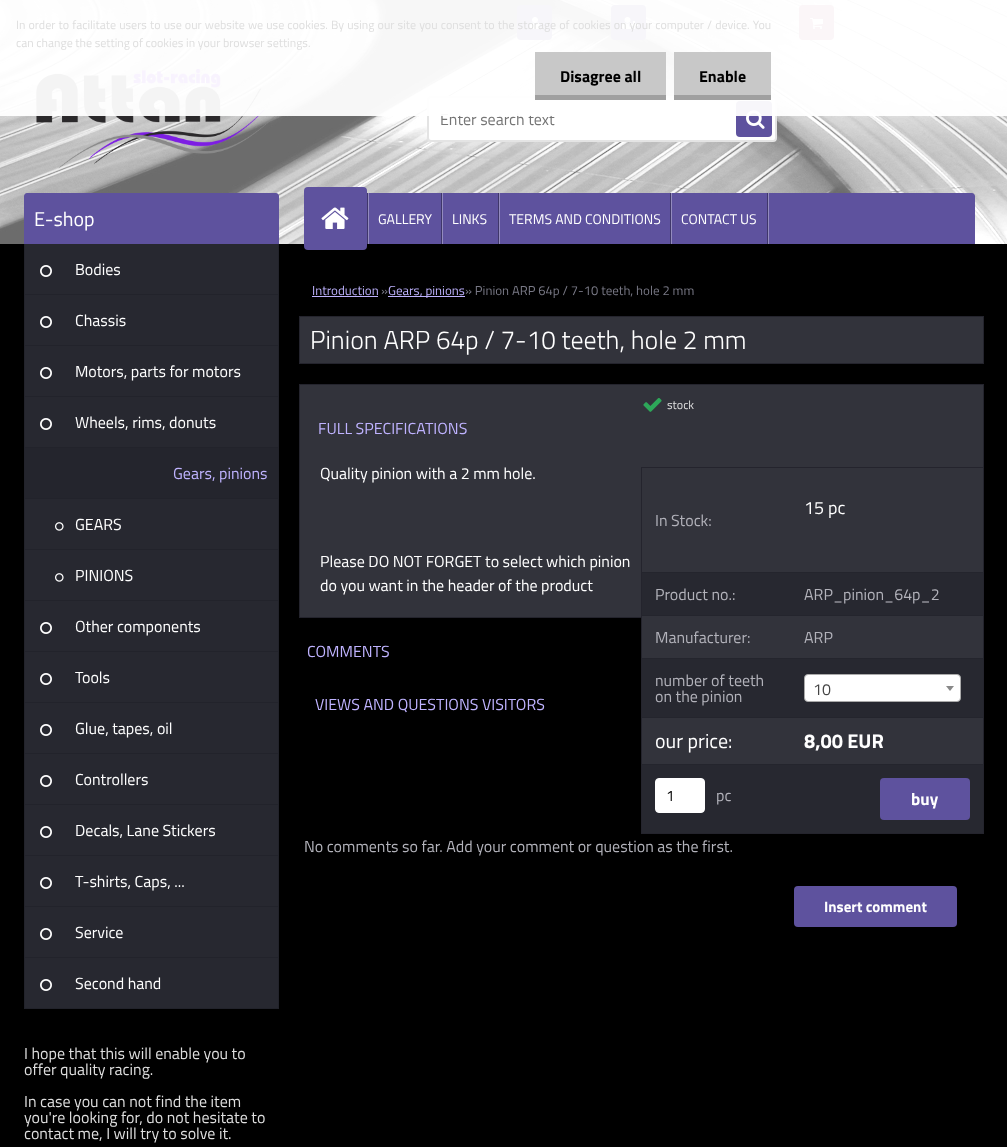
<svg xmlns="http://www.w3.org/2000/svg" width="1007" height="1147">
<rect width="100%" height="100%" fill="#000"/>
<image x="0" y="0" width="1007" height="244" href="media/1.png"/>
<image x="36" y="69" width="250" height="100" href="media/2.png"/>
<rect x="428" y="97" width="348" height="44" rx="3" fill="#fff" stroke="#e4e4e4" stroke-width="2"/>
<text x="440" y="125" style="font-family:Titillium Web;font-size:16px;fill:#757575">Enter search text</text>
<rect x="736" y="101" width="36" height="36" rx="4" fill="#5e529e"/>
<image x="746" y="110" width="19" height="19" href="media/3.png"/>
<rect x="517" y="5" width="35" height="35" rx="4" fill="#5e529e"/>
<image x="530" y="17" width="10" height="12" href="media/4.png"/>
<rect x="611" y="5" width="35" height="35" rx="4" fill="#5e529e"/>
<image x="622" y="17" width="16" height="12" href="media/5.png"/>
<rect x="799" y="5" width="35" height="35" rx="4" fill="#ab4e72"/>
<image x="810" y="18" width="13" height="11" href="media/6.png"/>
<rect width="1007" height="116" fill="#fffffff2"/>
<text x="16" y="29" word-spacing="0.5" style="font-family:Titillium Web;font-size:12px;fill:#dedede">In order to facilitate users to use our website we use cookies. By using our site you consent to the storage of cookies on your computer / device. You</text>
<text x="16" y="47" style="font-family:Titillium Web;font-size:12px;fill:#dedede">can change the setting of cookies in your browser settings.</text>
<rect x="535" y="52" width="131" height="43" fill="#c8c8c8"/>
<rect x="535" y="95" width="131" height="5" fill="#a0a0a0"/>
<text x="560" y="82" style="font-family:Titillium Web;font-size:16px;font-weight:bold;fill:#000">Disagree all</text>
<rect x="674" y="52" width="97" height="43" fill="#c8c8c8"/>
<rect x="674" y="95" width="97" height="5" fill="#a0a0a0"/>
<text x="699" y="82" style="font-family:Titillium Web;font-size:16px;font-weight:bold;fill:#000">Enable</text>
<path d="M27 193h249c1.5 0 3 1.5 3 3v48h-255v-48c0-1.5 1.5-3 3-3z" fill="#5e529e"/>
<text x="34" y="226" style="font-family:Titillium Web;font-size:20px;fill:#fff">E-shop</text>
<rect x="25" y="244" width="253" height="50" fill="#272830"/>
<rect x="278" y="244" width="1" height="765" fill="#22232b"/>
<rect x="24" y="294" width="255" height="1" fill="#22232b"/>
<rect x="24" y="244" width="1" height="51" fill="#22232b"/>
<image x="40" y="265" width="12" height="12" href="media/7.png"/>
<text x="75" y="275" style="font-family:Titillium Web;font-size:16px;fill:#fff">Bodies</text>
<rect x="25" y="295" width="253" height="50" fill="#272830"/>
<rect x="24" y="345" width="255" height="1" fill="#22232b"/>
<rect x="24" y="295" width="1" height="51" fill="#22232b"/>
<image x="40" y="316" width="12" height="12" href="media/7.png"/>
<text x="75" y="326" style="font-family:Titillium Web;font-size:16px;fill:#fff">Chassis</text>
<rect x="25" y="346" width="253" height="50" fill="#272830"/>
<rect x="24" y="396" width="255" height="1" fill="#22232b"/>
<rect x="24" y="346" width="1" height="51" fill="#22232b"/>
<image x="40" y="367" width="12" height="12" href="media/7.png"/>
<text x="75" y="377" style="font-family:Titillium Web;font-size:16px;fill:#fff">Motors, parts for motors</text>
<rect x="25" y="397" width="253" height="50" fill="#272830"/>
<rect x="24" y="447" width="255" height="1" fill="#22232b"/>
<rect x="24" y="397" width="1" height="51" fill="#22232b"/>
<image x="40" y="418" width="12" height="12" href="media/7.png"/>
<text x="75" y="428" style="font-family:Titillium Web;font-size:16px;fill:#fff">Wheels, rims, donuts</text>
<rect x="25" y="448" width="253" height="50" fill="#24252d"/>
<rect x="24" y="498" width="255" height="1" fill="#22232b"/>
<rect x="24" y="448" width="1" height="51" fill="#22232b"/>
<text x="173" y="479" style="font-family:Titillium Web;font-size:16px;fill:#bfb3ff">Gears, pinions</text>
<rect x="25" y="499" width="253" height="50" fill="#272830"/>
<rect x="24" y="549" width="255" height="1" fill="#22232b"/>
<rect x="24" y="499" width="1" height="51" fill="#22232b"/>
<image x="55" y="522" width="9" height="9" href="media/8.png"/>
<text x="75" y="530" style="font-family:Titillium Web;font-size:16px;fill:#fff">GEARS</text>
<rect x="25" y="550" width="253" height="50" fill="#272830"/>
<rect x="24" y="600" width="255" height="1" fill="#22232b"/>
<rect x="24" y="550" width="1" height="51" fill="#22232b"/>
<image x="55" y="573" width="9" height="9" href="media/8.png"/>
<text x="75" y="581" style="font-family:Titillium Web;font-size:16px;fill:#fff">PINIONS</text>
<rect x="25" y="601" width="253" height="50" fill="#272830"/>
<rect x="24" y="651" width="255" height="1" fill="#22232b"/>
<rect x="24" y="601" width="1" height="51" fill="#22232b"/>
<image x="40" y="622" width="12" height="12" href="media/7.png"/>
<text x="75" y="632" style="font-family:Titillium Web;font-size:16px;fill:#fff">Other components</text>
<rect x="25" y="652" width="253" height="50" fill="#272830"/>
<rect x="24" y="702" width="255" height="1" fill="#22232b"/>
<rect x="24" y="652" width="1" height="51" fill="#22232b"/>
<image x="40" y="673" width="12" height="12" href="media/7.png"/>
<text x="75" y="683" style="font-family:Titillium Web;font-size:16px;fill:#fff">Tools</text>
<rect x="25" y="703" width="253" height="50" fill="#272830"/>
<rect x="24" y="753" width="255" height="1" fill="#22232b"/>
<rect x="24" y="703" width="1" height="51" fill="#22232b"/>
<image x="40" y="724" width="12" height="12" href="media/7.png"/>
<text x="75" y="734" style="font-family:Titillium Web;font-size:16px;fill:#fff">Glue, tapes, oil</text>
<rect x="25" y="754" width="253" height="50" fill="#272830"/>
<rect x="24" y="804" width="255" height="1" fill="#22232b"/>
<rect x="24" y="754" width="1" height="51" fill="#22232b"/>
<image x="40" y="775" width="12" height="12" href="media/7.png"/>
<text x="75" y="785" style="font-family:Titillium Web;font-size:16px;fill:#fff">Controllers</text>
<rect x="25" y="805" width="253" height="50" fill="#272830"/>
<rect x="24" y="855" width="255" height="1" fill="#22232b"/>
<rect x="24" y="805" width="1" height="51" fill="#22232b"/>
<image x="40" y="826" width="12" height="12" href="media/7.png"/>
<text x="75" y="836" style="font-family:Titillium Web;font-size:16px;fill:#fff">Decals, Lane Stickers</text>
<rect x="25" y="856" width="253" height="50" fill="#272830"/>
<rect x="24" y="906" width="255" height="1" fill="#22232b"/>
<rect x="24" y="856" width="1" height="51" fill="#22232b"/>
<image x="40" y="877" width="12" height="12" href="media/7.png"/>
<text x="75" y="887" style="font-family:Titillium Web;font-size:16px;fill:#fff">T-shirts, Caps, ...</text>
<rect x="25" y="907" width="253" height="50" fill="#272830"/>
<rect x="24" y="957" width="255" height="1" fill="#22232b"/>
<rect x="24" y="907" width="1" height="51" fill="#22232b"/>
<image x="40" y="928" width="12" height="12" href="media/7.png"/>
<text x="75" y="938" style="font-family:Titillium Web;font-size:16px;fill:#fff">Service</text>
<rect x="25" y="958" width="253" height="50" fill="#272830"/>
<rect x="24" y="1008" width="255" height="1" fill="#22232b"/>
<rect x="24" y="958" width="1" height="51" fill="#22232b"/>
<image x="40" y="979" width="12" height="12" href="media/7.png"/>
<text x="75" y="989" style="font-family:Titillium Web;font-size:16px;fill:#fff">Second hand</text>
<text x="24" y="1059" style="font-family:Titillium Web;font-size:16px;fill:#dedede">I hope that this will enable you to</text>
<text x="24" y="1075" style="font-family:Titillium Web;font-size:16px;fill:#dedede">offer quality racing.</text>
<text x="24" y="1107" style="font-family:Titillium Web;font-size:16px;fill:#dedede">In case you can not find the item</text>
<text x="24" y="1123" style="font-family:Titillium Web;font-size:16px;fill:#dedede">you're looking for, do not hesitate to</text>
<text x="24" y="1139" style="font-family:Titillium Web;font-size:16px;fill:#dedede">contact me, I will try to solve it.</text>
<text x="312" y="295" style="font-family:Titillium Web;font-size:13px;fill:#bfb3ff">Introduction</text>
<rect x="312" y="296" width="66" height="1" fill="#bfb3ff"/>
<text x="381" y="295" style="font-family:Titillium Web;font-size:13px;fill:#797986">»</text>
<rect x="388" y="296" width="77" height="1" fill="#bfb3ff"/>
<text x="388" y="295" style="font-family:Titillium Web;font-size:13px;fill:#bfb3ff">Gears, pinions</text>
<text x="465" y="295" style="font-family:Titillium Web;font-size:13px;fill:#797986">» Pinion ARP 64p / 7-10 teeth, hole 2 mm</text>
<rect x="299.5" y="316.5" width="684" height="47" fill="#32333b" stroke="#24242d"/>
<text x="310" y="349" style="font-family:Titillium Web;font-size:26px;font-weight:300;fill:#fff">Pinion ARP 64p / 7-10 teeth, hole 2 mm</text>
<rect x="299.5" y="384.5" width="684" height="233" fill="#32333b" stroke="#24242d"/>
<image x="643" y="398" width="19" height="14" href="media/9.png"/>
<text x="667" y="409" style="font-family:Titillium Web;font-size:12px;fill:#dedede">stock</text>
<rect x="641" y="467" width="343" height="1" fill="#24242d"/>
<rect x="983" y="618" width="1" height="216" fill="#24242d"/>
<rect x="641" y="833" width="343" height="1" fill="#24242d"/>
<rect x="641" y="467" width="1" height="367" fill="#24242d"/>
<text x="804" y="514" style="font-family:Titillium Web;font-size:18px;fill:#fff">15 pc</text>
<text x="655" y="526" style="font-family:Titillium Web;font-size:16px;fill:#b2b2ba">In Stock:</text>
<rect x="641" y="572" width="343" height="1" fill="#24252d"/>
<rect x="642" y="573" width="341" height="42" fill="#272830"/>
<text x="655" y="600" style="font-family:Titillium Web;font-size:16px;fill:#b2b2ba">Product no.:</text>
<text x="804" y="600" style="font-family:Titillium Web;font-size:16px;fill:#b2b2ba">ARP_pinion_64p_2</text>
<rect x="642" y="617" width="341" height="41" fill="#32333b"/>
<rect x="641" y="615" width="343" height="1" fill="#24252d"/>
<text x="655" y="643" style="font-family:Titillium Web;font-size:16px;fill:#b2b2ba">Manufacturer:</text>
<text x="804" y="643" style="font-family:Titillium Web;font-size:16px;fill:#b2b2ba">ARP</text>
<rect x="641" y="658" width="343" height="1" fill="#24252d"/>
<rect x="642" y="659" width="341" height="58" fill="#272830"/>
<text x="655" y="686" style="font-family:Titillium Web;font-size:16px;fill:#b2b2ba">number of teeth</text>
<text x="655" y="702" style="font-family:Titillium Web;font-size:16px;fill:#b2b2ba">on the pinion</text>
<rect x="804.5" y="674.5" width="156" height="27" rx="3.5" fill="#fff" stroke="#aaa"/>
<text x="813" y="695" style="font-family:Titillium Web;font-size:16px;fill:#444">10</text>
<path d="M946 686h8l-4 5z" fill="#888"/>
<rect x="642" y="718" width="341" height="46" fill="#32333b"/>
<rect x="641" y="717" width="343" height="1" fill="#24252d"/>
<text x="655" y="748" style="font-family:Titillium Web;font-size:20px;fill:#fff">our price:</text>
<text x="804" y="748" style="font-family:Titillium Web;font-size:20px;font-weight:bold;fill:#fff">8,00 EUR</text>
<rect x="641" y="764" width="343" height="1" fill="#24252d"/>
<rect x="642" y="765" width="341" height="68" fill="#272830"/>
<rect x="655.5" y="778.5" width="49" height="34" rx="3.5" fill="#fff" stroke="#fff"/>
<text x="666" y="801" style="font-family:Titillium Web;font-size:15px;fill:#000">1</text>
<text x="716" y="801" style="font-family:Titillium Web;font-size:16px;fill:#b2b2ba">pc</text>
<rect x="880" y="778" width="90" height="42" rx="4" fill="#5e529e"/>
<text x="911" y="805" style="font-family:Titillium Web;font-size:17px;font-weight:bold;fill:#fff">buy</text>
<text x="318" y="434" style="font-family:Titillium Web;font-size:16px;fill:#bfb3ff">FULL SPECIFICATIONS</text>
<text x="320" y="479" style="font-family:Titillium Web;font-size:16px;fill:#fff">Quality pinion with a 2 mm hole.</text>
<text x="320" y="567" style="font-family:Titillium Web;font-size:16px;fill:#fff">Please DO NOT FORGET to select which pinion</text>
<text x="320" y="591" style="font-family:Titillium Web;font-size:16px;fill:#fff">do you want in the header of the product</text>
<text x="307" y="657" style="font-family:Titillium Web;font-size:16px;fill:#bfb3ff">COMMENTS</text>
<text x="315" y="710" style="font-family:Titillium Web;font-size:16px;fill:#bfb3ff">VIEWS AND QUESTIONS VISITORS</text>
<text x="304" y="852" style="font-family:Titillium Web;font-size:16px;fill:#b2b2ba">No comments so far. Add your comment or question as the first.</text>
<rect x="794" y="886" width="163" height="41" rx="4" fill="#5e529e"/>
<text x="824" y="912" style="font-family:Titillium Web;font-size:15px;font-weight:bold;fill:#fff">Insert comment</text>
<path d="M309 193h663c1.5 0 3 1.5 3 3v48h-669v-48c0-1.5 1.5-3 3-3z" fill="#5e529e"/>
<rect x="368" y="193" width="1" height="51" fill="#938bbe"/>
<rect x="367" y="193" width="1" height="51" fill="#3f376a"/>
<rect x="304" y="187" width="63" height="63" rx="4" fill="#5e529e"/>
<image x="321" y="207" width="28" height="22" href="media/10.png"/>
<rect x="442" y="193" width="1" height="51" fill="#938bbe"/>
<rect x="441" y="193" width="1" height="51" fill="#3f376a"/>
<text x="378" y="224" style="font-family:Titillium Web;font-size:14px;fill:#fff">GALLERY</text>
<rect x="499" y="193" width="1" height="51" fill="#938bbe"/>
<rect x="498" y="193" width="1" height="51" fill="#3f376a"/>
<text x="452" y="224" style="font-family:Titillium Web;font-size:14px;fill:#fff">LINKS</text>
<rect x="671" y="193" width="1" height="51" fill="#938bbe"/>
<rect x="670" y="193" width="1" height="51" fill="#3f376a"/>
<text x="509" y="224" style="font-family:Titillium Web;font-size:14px;fill:#fff">TERMS AND CONDITIONS</text>
<rect x="768" y="193" width="1" height="51" fill="#938bbe"/>
<rect x="767" y="193" width="1" height="51" fill="#3f376a"/>
<text x="681" y="224" style="font-family:Titillium Web;font-size:14px;fill:#fff">CONTACT US</text>
</svg>
